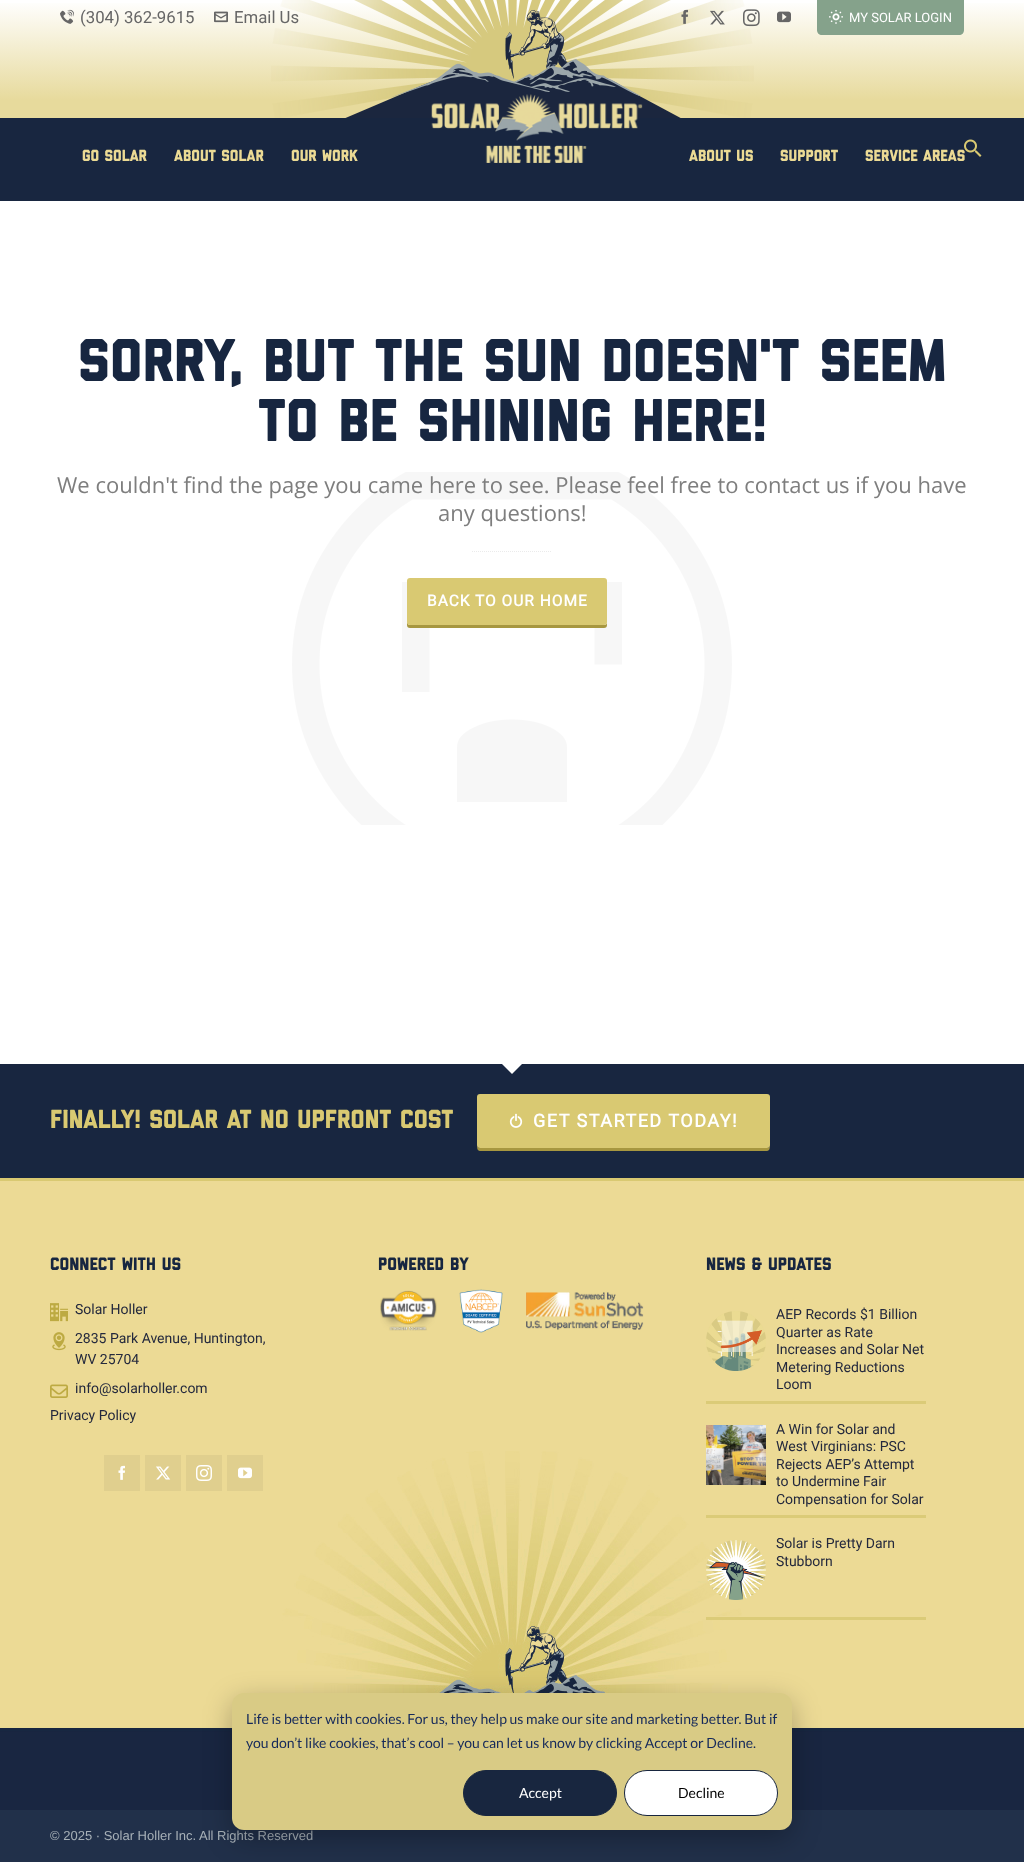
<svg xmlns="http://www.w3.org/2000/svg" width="1024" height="1862">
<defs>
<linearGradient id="g1" gradientUnits="userSpaceOnUse" x1="512" y1="0" x2="512" y2="201"><stop offset="0" stop-color="#fff"/><stop offset="0.5" stop-color="#e7da9c"/></linearGradient>
</defs>
<rect width="100%" height="100%" fill="#fff"/>
<rect y="3" width="1024" height="115" fill="url(#g1)"/>
<image x="271" y="0" width="483" height="118" href="media/1.png"/>
<image x="60" y="9" width="14" height="15" href="media/2.png"/>
<text x="80" y="23" style="font-family:Roboto;font-size:16.75px;fill:#666">(304) 362-9615</text>
<image x="214" y="11" width="14" height="12" href="media/3.png"/>
<text x="234" y="23" style="font-family:Roboto;font-size:16.75px;fill:#666">Email Us</text>
<image x="681" y="9" width="7" height="15" href="media/4.png"/>
<image x="710" y="10" width="15" height="15" href="media/5.png"/>
<image x="743" y="9" width="17" height="18" href="media/6.png"/>
<image x="777" y="11" width="14" height="12" href="media/7.png"/>
<path d="M817 0h147v30c0 3-2 5-5 5h-137c-3 0-5-2-5-5z" fill="#85a28b"/>
<image x="829" y="10" width="14" height="14" href="media/8.png"/>
<text x="849" y="22" style="font-family:Roboto;font-size:13px;fill:#fff">MY SOLAR LOGIN</text>
<rect y="118" width="1024" height="83" fill="#182640"/>
<text x="82" y="161" style="font-family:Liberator;font-size:16px;font-weight:900;fill:#ebda94">Go Solar</text>
<text x="174" y="161" style="font-family:Liberator;font-size:16px;font-weight:900;fill:#ebda94">About Solar</text>
<text x="291" y="161" style="font-family:Liberator;font-size:16px;font-weight:900;fill:#ebda94">Our Work</text>
<image x="431" y="94" width="212" height="69" href="media/9.png"/>
<text x="689" y="161" style="font-family:Liberator;font-size:16px;font-weight:900;fill:#ebda94">About Us</text>
<text x="780" y="161" style="font-family:Liberator;font-size:16px;font-weight:900;fill:#ebda94">Support</text>
<text x="865" y="161" style="font-family:Liberator;font-size:16px;font-weight:900;fill:#ebda94">Service Areas</text>
<image x="964" y="139" width="18" height="18" href="media/10.png"/>
<text x="78" y="381" style="font-family:Liberator;font-size:60px;font-weight:900;fill:#172640">Sorry, but the sun doesn't seem</text>
<text x="258" y="441" style="font-family:Liberator;font-size:60px;font-weight:900;fill:#172640">to be shining here!</text>
<image x="292" y="472" width="440" height="353" href="media/11.png"/>
<text x="57" y="493" style="font-family:Open Sans;font-size:22px;fill:#7e7e7e">We couldn't find the page you came here to see. Please feel free to contact us if you have</text>
<text x="438" y="521" style="font-family:Open Sans;font-size:22px;fill:#7e7e7e">any questions!</text>
<path d="M472 551.5h80" fill="none" stroke="#ebebeb" stroke-dasharray="1 1"/>
<path d="M407 622v3c0 2 1 3 3 3h194c2 0 3-1 3-3v-3c0 2-1 3-3 3h-195l-1-1z" fill="#a79740"/>
<rect x="407" y="578" width="200" height="47" rx="3" fill="#d9c972"/>
<text x="427" y="606" style="font-family:Roboto;font-size:15.5px;font-weight:bold;letter-spacing:1px;fill:#fff">BACK TO OUR HOME</text>
<rect y="1064" width="1024" height="114" fill="#182640"/>
<rect y="1178" width="1024" height="3" fill="#d9c972"/>
<path d="M501 1063h22l-11 11z" fill="#fff"/>
<text x="50" y="1128" style="font-family:Liberator;font-size:26px;font-weight:900;fill:#d9c972">Finally! Solar at No Upfront Cost</text>
<path d="M477 1145c0 2 0 6 3 6h287c3 0 3-4 3-6c0 2-1 3-3 3h-287c-2 0-3-1-3-3z" fill="#a79740"/>
<rect x="477" y="1094" width="293" height="54" rx="3" fill="#d9c972"/>
<image x="509" y="1113" width="14" height="15" href="media/12.png"/>
<text x="533" y="1127" style="font-family:Roboto;font-size:18px;font-weight:bold;letter-spacing:1.5px;fill:#fff">GET STARTED TODAY!</text>
<rect y="1181" width="1024" height="270" fill="#ecda95"/>
<image x="0" y="1451" width="1024" height="359" href="media/13.png"/>
<text x="50" y="1270" style="font-family:Liberator;font-size:18px;font-weight:900;fill:#172640">CONNECT WITH US</text>
<image x="50" y="1303" width="18" height="19" href="media/14.png"/>
<text x="75" y="1314" style="font-family:Roboto;font-size:14px;fill:#24293d">Solar Holler</text>
<image x="52" y="1332" width="14" height="19" href="media/15.png"/>
<text x="75" y="1343" style="font-family:Roboto;font-size:14px;fill:#24293d">2835 Park Avenue, Huntington,</text>
<text x="75" y="1364" style="font-family:Roboto;font-size:14px;fill:#24293d">WV 25704</text>
<image x="50" y="1384" width="18" height="14" href="media/16.png"/>
<text x="75" y="1393" style="font-family:Roboto;font-size:14px;fill:#24293d">info@solarholler.com</text>
<text x="50" y="1420" style="font-family:Roboto;font-size:14px;fill:#24293d">Privacy Policy</text>
<rect x="104" y="1455" width="36" height="36" fill="#e0cf8e"/>
<image x="118" y="1465" width="7" height="15" href="media/17.png"/>
<rect x="145" y="1455" width="36" height="36" fill="#e0cf8e"/>
<image x="156" y="1466" width="15" height="14" href="media/18.png"/>
<rect x="186" y="1455" width="36" height="36" fill="#e0cf8e"/>
<image x="196" y="1465" width="16" height="16" href="media/19.png"/>
<rect x="227" y="1455" width="36" height="36" fill="#e0cf8e"/>
<image x="238" y="1467" width="14" height="12" href="media/20.png"/>
<text x="378" y="1270" style="font-family:Liberator;font-size:18px;font-weight:900;fill:#172640">POWERED BY</text>
<image x="380" y="1290" width="57" height="41" href="media/21.png"/>
<image x="459" y="1289" width="44" height="44" href="media/22.png"/>
<image x="526" y="1292" width="118" height="38" href="media/23.png"/>
<text x="706" y="1270" style="font-family:Liberator;font-size:18px;font-weight:900;fill:#172640">NEWS &amp; UPDATES</text>
<rect x="706" y="1401" width="220" height="3" fill="#dbcb78"/>
<image x="706" y="1311" width="60" height="60" href="media/24.png"/>
<text x="776" y="1319" style="font-family:Roboto;font-size:14px;fill:#24293d">AEP Records $1 Billion</text>
<text x="776" y="1337" style="font-family:Roboto;font-size:14px;fill:#24293d">Quarter as Rate</text>
<text x="776" y="1354" style="font-family:Roboto;font-size:14px;fill:#24293d">Increases and Solar Net</text>
<text x="776" y="1372" style="font-family:Roboto;font-size:14px;fill:#24293d">Metering Reductions</text>
<text x="776" y="1389" style="font-family:Roboto;font-size:14px;fill:#24293d">Loom</text>
<rect x="706" y="1515" width="220" height="3" fill="#dbcb78"/>
<image x="706" y="1425" width="60" height="60" href="media/25.png"/>
<text x="776" y="1434" style="font-family:Roboto;font-size:14px;fill:#24293d">A Win for Solar and</text>
<text x="776" y="1451" style="font-family:Roboto;font-size:14px;fill:#24293d">West Virginians: PSC</text>
<text x="776" y="1469" style="font-family:Roboto;font-size:14px;fill:#24293d">Rejects AEP’s Attempt</text>
<text x="776" y="1486" style="font-family:Roboto;font-size:14px;fill:#24293d">to Undermine Fair</text>
<text x="776" y="1504" style="font-family:Roboto;font-size:14px;fill:#24293d">Compensation for Solar</text>
<rect x="706" y="1617" width="220" height="3" fill="#dbcb78"/>
<image x="706" y="1540" width="60" height="60" href="media/26.png"/>
<text x="776" y="1548" style="font-family:Roboto;font-size:14px;fill:#24293d">Solar is Pretty Darn</text>
<text x="776" y="1566" style="font-family:Roboto;font-size:14px;fill:#24293d">Stubborn</text>
<rect y="1810" width="1024" height="52" fill="#21304a"/>
<text x="50" y="1840" style="font-family:Liberation Sans;font-size:13px;fill:#a7b0b7">© 2025 · Solar Holler Inc. All Rights Reserved</text>
<rect x="232" y="1701" width="560" height="137" rx="12" fill="#00000047" filter="blur(14px)"/>
<rect x="232" y="1693" width="560" height="137" rx="12" fill="#d9cb85"/>
<text x="246" y="1724" style="font-family:Lato;font-size:14px;fill:#15295a">Life is better with cookies. For us, they help us make our site and marketing better. But if</text>
<text x="246" y="1748" style="font-family:Lato;font-size:14px;fill:#15295a">you don’t like cookies, that’s cool – you can let us know by clicking Accept or Decline.</text>
<rect x="463.5" y="1770.5" width="153" height="45" rx="22.5" fill="#18263f" stroke="#18263f"/>
<text x="519" y="1798" style="font-family:Lato;font-size:14px;fill:#fff">Accept</text>
<rect x="624.5" y="1770.5" width="153" height="45" rx="22.5" fill="#fff" stroke="#18263f"/>
<text x="678" y="1798" style="font-family:Lato;font-size:14px;fill:#000">Decline</text>
</svg>
